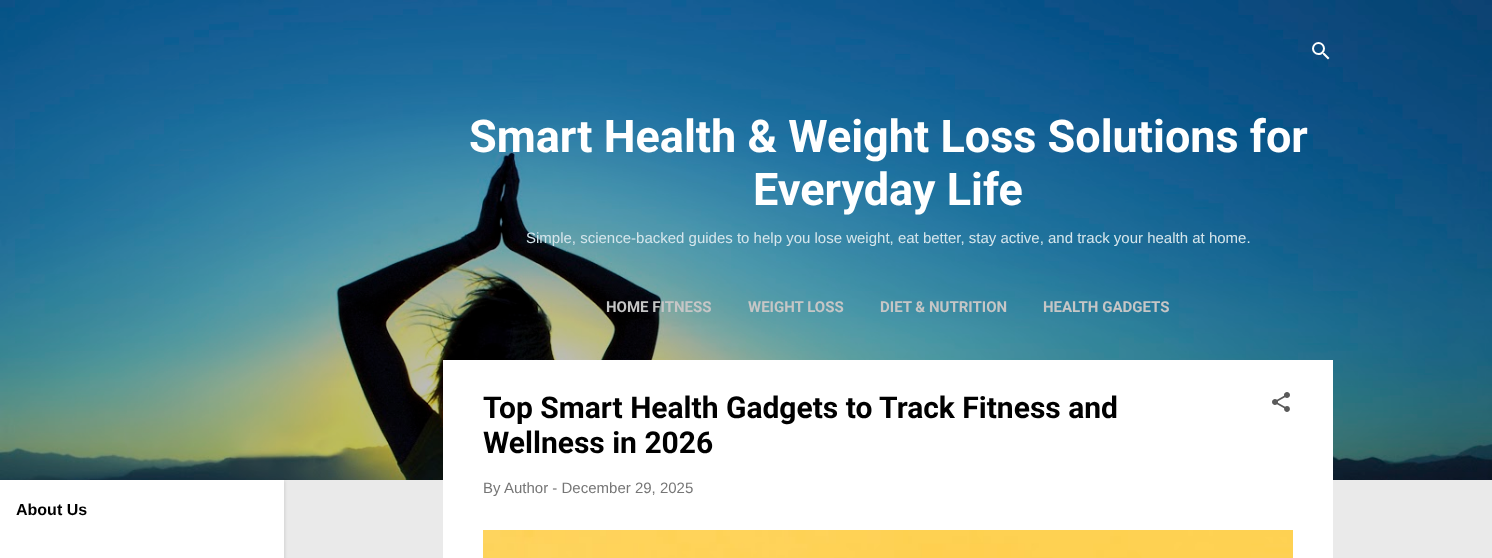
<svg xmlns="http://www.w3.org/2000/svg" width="1492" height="558">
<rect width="100%" height="100%" fill="#eaeaea"/>
<image x="0" y="0" width="1492" height="480" href="media/1.png"/>
<image x="1312" y="42" width="18" height="18" href="media/2.png"/>
<text x="469" y="152" style="font-family:Roboto;font-size:45px;font-weight:bold;fill:#fff">Smart Health &amp; Weight Loss Solutions for</text>
<text x="753" y="205" style="font-family:Roboto;font-size:45px;font-weight:bold;fill:#fff">Everyday Life</text>
<text x="526" y="243" style="font-family:Liberation Sans;font-size:15px;fill:#d6e6ec">Simple, science-backed guides to help you lose weight, eat better, stay active, and track your health at home.</text>
<text x="606" y="312" style="font-family:Roboto;font-size:15px;font-weight:bold;fill:#c6c6c6">HOME FITNESS</text>
<text x="748" y="312" style="font-family:Roboto;font-size:15px;font-weight:bold;fill:#c6c6c6">WEIGHT LOSS</text>
<text x="880" y="312" style="font-family:Roboto;font-size:15px;font-weight:bold;fill:#c6c6c6">DIET &amp; NUTRITION</text>
<text x="1043" y="312" style="font-family:Roboto;font-size:15px;font-weight:bold;fill:#c6c6c6">HEALTH GADGETS</text>
<rect x="443" y="360" width="890" height="198" fill="#fff"/>
<text x="483" y="418" style="font-family:Roboto;font-size:30px;font-weight:bold;fill:#000">Top Smart Health Gadgets to Track Fitness and</text>
<text x="483" y="453" style="font-family:Roboto;font-size:30px;font-weight:bold;fill:#000">Wellness in 2026</text>
<image x="1272" y="392" width="18" height="20" href="media/3.png"/>
<text x="483" y="493" style="font-family:Liberation Sans;font-size:15px;fill:#767676">By</text>
<text x="504" y="493" style="font-family:Liberation Sans;font-size:15px;fill:#767676">Author - December 29, 2025</text>
<image x="483" y="530" width="810" height="28" href="media/4.png"/>
<rect x="1" y="481" width="284" height="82" fill="#0000001a" filter="blur(1.5px)"/>
<rect y="480" width="284" height="78" fill="#fff"/>
<text x="16" y="515" style="font-family:Liberation Sans;font-size:16px;font-weight:bold;fill:#000">About Us</text>
</svg>
